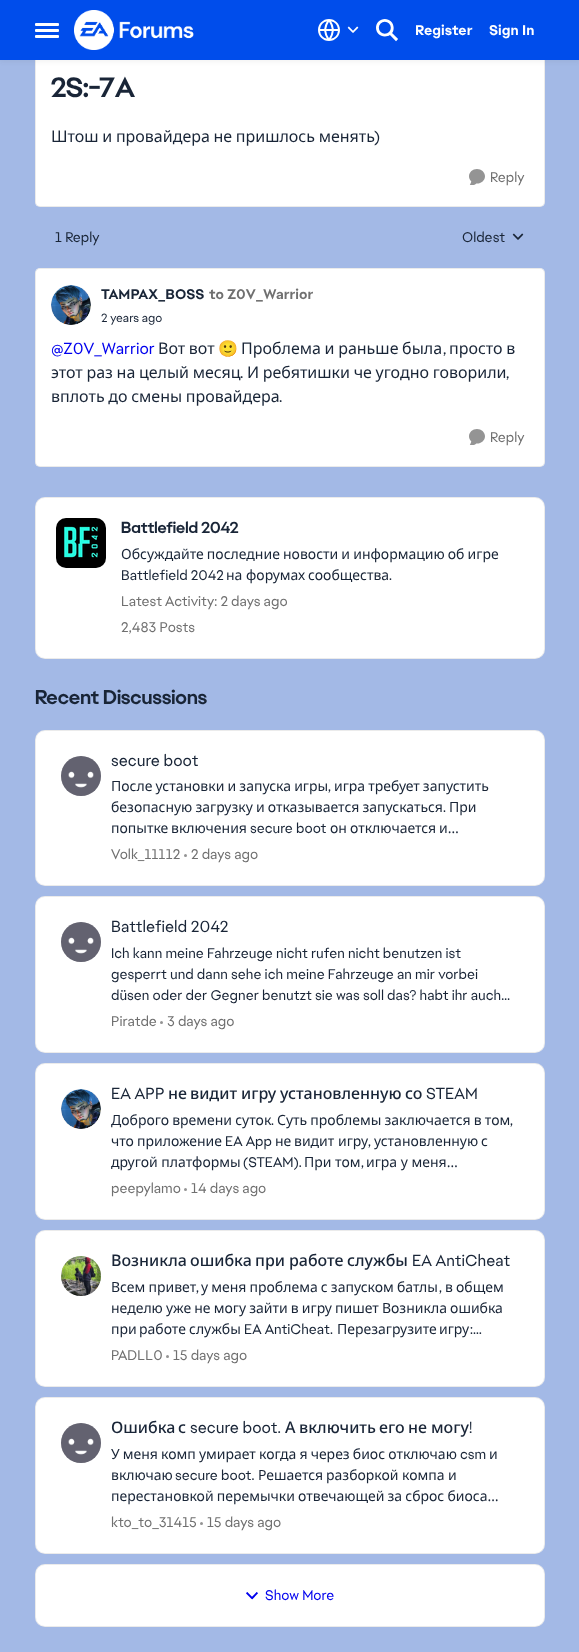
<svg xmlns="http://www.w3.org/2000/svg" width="579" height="1652">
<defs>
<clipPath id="clip1"><rect x="111" y="1110" width="408" height="63"/></clipPath>
</defs>
<rect width="100%" height="100%" fill="#a3b9e6"/>
<rect x="35" y="-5" width="510" height="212" rx="5" fill="#fff"/>
<rect x="35.5" y="-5.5" width="509" height="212" rx="4.5" fill="none" stroke="#00000014"/>
<rect y="2" width="579" height="60" fill="#3333330f" filter="blur(2px)"/>
<rect width="579" height="60" fill="#004deb"/>
<rect x="35" y="23" width="24" height="3" rx="1" fill="#fff"/>
<rect x="35" y="29" width="24" height="3" rx="1" fill="#fff"/>
<rect x="35" y="35" width="24" height="3" rx="1" fill="#fff"/>
<image x="74" y="10" width="120" height="40" href="media/1.png"/>
<image x="318" y="19" width="22" height="22" href="media/2.png"/>
<image x="347" y="26" width="12" height="7" href="media/3.png"/>
<image x="376" y="19" width="22" height="23" href="media/4.png"/>
<text x="415" y="35" style="font-family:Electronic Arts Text;font-size:14px;font-weight:bold;fill:#fff">Register</text>
<text x="489" y="35" style="font-family:Electronic Arts Text;font-size:14px;font-weight:bold;fill:#fff">Sign In</text>
<text x="51" y="97" style="font-family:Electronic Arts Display;font-size:28px;font-weight:bold;fill:#192537">2S:-7A</text>
<text x="51" y="142" word-spacing="-0.5" style="font-family:Noto Sans;font-size:16px;fill:#192537">Штош и провайдера не пришлось менять</text>
<text x="374" y="142" style="font-family:Electronic Arts Text;font-size:16px;fill:#192537">)</text>
<image x="469" y="169" width="16" height="16" href="media/5.png"/>
<text x="490" y="182" style="font-family:Electronic Arts Text;font-size:14px;fill:#707070">Reply</text>
<text x="55" y="242" style="font-family:Electronic Arts Text;font-size:14px;fill:#192537">1 Reply</text>
<text x="462" y="242" style="font-family:Electronic Arts Text;font-size:14px;fill:#192537">Oldest</text>
<image x="512" y="233" width="12" height="7" href="media/6.png"/>
<rect x="35" y="268" width="510" height="199" rx="5" fill="#fff"/>
<rect x="35.5" y="268.5" width="509" height="198" rx="4.5" fill="none" stroke="#00000014"/>
<circle cx="71" cy="305" r="20" fill="#d9d9d9"/>
<image x="51" y="285" width="40" height="40" href="media/7.png"/>
<text x="101" y="299" style="font-family:Electronic Arts Text;font-size:14px;font-weight:bold;fill:#192537">TAMPAX_BOSS</text>
<text x="209" y="299" style="font-family:Electronic Arts Text;font-size:14px;font-weight:bold;fill:#707070">to Z0V_Warrior</text>
<text x="101" y="322" style="font-family:Electronic Arts Text;font-size:12px;fill:#192537">2 years ago</text>
<text x="51" y="354" style="font-family:Electronic Arts Text;font-size:16px;fill:#00e">@Z0V_Warrior</text>
<text x="158" y="354" word-spacing="-0.5" style="font-family:Noto Sans;font-size:16px;fill:#192537">Вот вот</text>
<text x="218" y="354" style="font-family:Noto Color Emoji;font-size:16px;fill:#192537">🙂</text>
<text x="241" y="354" word-spacing="-0.5" style="font-family:Noto Sans;font-size:16px;fill:#192537">Проблема и раньше была</text>
<text x="443" y="354" style="font-family:Electronic Arts Text;font-size:16px;fill:#192537">,</text>
<text x="449" y="354" word-spacing="-0.5" style="font-family:Noto Sans;font-size:16px;fill:#192537">просто в</text>
<text x="51" y="378" word-spacing="-0.5" style="font-family:Noto Sans;font-size:16px;fill:#192537">этот раз на целый месяц</text>
<text x="240" y="378" style="font-family:Electronic Arts Text;font-size:16px;fill:#192537">.</text>
<text x="247" y="378" word-spacing="-0.5" style="font-family:Noto Sans;font-size:16px;fill:#192537">И ребятишки че угодно говорили</text>
<text x="506" y="378" style="font-family:Electronic Arts Text;font-size:16px;fill:#192537">,</text>
<text x="51" y="402" word-spacing="-0.5" style="font-family:Noto Sans;font-size:16px;fill:#192537">вплоть до смены провайдера</text>
<text x="279" y="402" style="font-family:Electronic Arts Text;font-size:16px;fill:#192537">.</text>
<image x="469" y="429" width="16" height="16" href="media/5.png"/>
<text x="490" y="442" style="font-family:Electronic Arts Text;font-size:14px;fill:#707070">Reply</text>
<rect x="35" y="497" width="510" height="162" rx="10" fill="#fff"/>
<rect x="35.5" y="497.5" width="509" height="161" rx="9.5" fill="none" stroke="#00000014"/>
<image x="56" y="518" width="50" height="50" href="media/8.png"/>
<text x="121" y="533" style="font-family:Electronic Arts Display;font-size:16px;font-weight:bold;fill:#192537">Battlefield 2042</text>
<text x="121" y="559" word-spacing="-0.5" style="font-family:Noto Sans;font-size:14px;fill:#192537">Обсуждайте последние новости и информацию об игре</text>
<text x="121" y="580" style="font-family:Electronic Arts Text;font-size:14px;fill:#192537">Battlefield 2042</text>
<text x="226" y="580" style="font-family:Noto Sans;font-size:14px;fill:#192537">на</text>
<text x="246" y="580" style="font-family:Noto Sans;font-size:14px;fill:#192537">форумах</text>
<text x="308" y="580" style="font-family:Noto Sans;font-size:14px;fill:#192537">сообщества</text>
<text x="389" y="580" style="font-family:Electronic Arts Text;font-size:14px;fill:#192537">.</text>
<text x="121" y="606" style="font-family:Electronic Arts Text;font-size:14px;fill:#707070">Latest Activity: 2 days ago</text>
<text x="121" y="632" style="font-family:Electronic Arts Text;font-size:14px;fill:#707070">2,483 Posts</text>
<text x="35" y="704" style="font-family:Electronic Arts Display;font-size:20px;font-weight:bold;fill:#192537">Recent Discussions</text>
<rect x="35" y="730" width="510" height="156" rx="10" fill="#fff"/>
<rect x="35.5" y="730.5" width="509" height="155" rx="9.5" fill="none" stroke="#00000014"/>
<circle cx="81" cy="776" r="20" fill="#d9d9d9"/>
<image x="61" y="756" width="40" height="40" href="media/9.png"/>
<text x="111" y="766" style="font-family:Electronic Arts Text;font-size:16px;fill:#192537">secure boot</text>
<text x="111" y="791" word-spacing="-0.5" style="font-family:Noto Sans;font-size:14px;fill:#192537">После установки и запуска игры</text>
<text x="328" y="791" style="font-family:Electronic Arts Text;font-size:14px;fill:#192537">,</text>
<text x="334" y="791" word-spacing="-0.5" style="font-family:Noto Sans;font-size:14px;fill:#192537">игра требует запустить</text>
<text x="111" y="812" word-spacing="-0.5" style="font-family:Noto Sans;font-size:14px;fill:#192537">безопасную загрузку и отказывается запускаться</text>
<text x="443" y="812" style="font-family:Electronic Arts Text;font-size:14px;fill:#192537">.</text>
<text x="449" y="812" style="font-family:Noto Sans;font-size:14px;fill:#192537">При</text>
<text x="111" y="833" style="font-family:Noto Sans;font-size:14px;fill:#192537">попытке</text>
<text x="171" y="833" style="font-family:Noto Sans;font-size:14px;fill:#192537">включения</text>
<text x="250" y="833" style="font-family:Electronic Arts Text;font-size:14px;fill:#192537">secure boot</text>
<text x="330" y="833" style="font-family:Noto Sans;font-size:14px;fill:#192537">он</text>
<text x="350" y="833" style="font-family:Noto Sans;font-size:14px;fill:#192537">отключается</text>
<text x="439" y="833" style="font-family:Noto Sans;font-size:14px;fill:#192537">и…</text>
<text x="111" y="859" style="font-family:Electronic Arts Text;font-size:14px;fill:#707070">Volk_11112</text>
<circle cx="185.5" cy="855.5" r="1.5" fill="#949494"/>
<text x="191" y="859" style="font-family:Electronic Arts Text;font-size:14px;fill:#707070">2 days ago</text>
<rect x="35" y="896" width="510" height="157" rx="10" fill="#fff"/>
<rect x="35.5" y="896.5" width="509" height="156" rx="9.5" fill="none" stroke="#00000014"/>
<circle cx="81" cy="942" r="20" fill="#d9d9d9"/>
<image x="61" y="922" width="40" height="40" href="media/10.png"/>
<text x="111" y="932" style="font-family:Electronic Arts Text;font-size:16px;fill:#192537">Battlefield 2042</text>
<text x="111" y="958" style="font-family:Electronic Arts Text;font-size:14px;fill:#192537">Ich kann meine Fahrzeuge nicht rufen nicht benutzen ist</text>
<text x="111" y="979" style="font-family:Electronic Arts Text;font-size:14px;fill:#192537">gesperrt und dann sehe ich meine Fahrzeuge an mir vorbei</text>
<text x="111" y="1000" style="font-family:Electronic Arts Text;font-size:14px;fill:#192537">düsen oder der Gegner benutzt sie was soll das? habt ihr auch…</text>
<text x="111" y="1026" style="font-family:Electronic Arts Text;font-size:14px;fill:#707070">Piratde</text>
<circle cx="161.5" cy="1022.5" r="1.5" fill="#949494"/>
<text x="167" y="1026" style="font-family:Electronic Arts Text;font-size:14px;fill:#707070">3 days ago</text>
<rect x="35" y="1063" width="510" height="157" rx="10" fill="#fff"/>
<rect x="35.5" y="1063.5" width="509" height="156" rx="9.5" fill="none" stroke="#00000014"/>
<circle cx="81" cy="1109" r="20" fill="#d9d9d9"/>
<image x="61" y="1089" width="40" height="40" href="media/7.png"/>
<text x="111" y="1099" style="font-family:Electronic Arts Text;font-size:16px;fill:#192537">EA APP</text>
<text x="168" y="1099" style="font-family:Noto Sans;font-size:16px;font-weight:500;fill:#192537">не</text>
<text x="190" y="1099" style="font-family:Noto Sans;font-size:16px;font-weight:500;fill:#192537">видит</text>
<text x="241" y="1099" style="font-family:Noto Sans;font-size:16px;font-weight:500;fill:#192537">игру</text>
<text x="280" y="1099" style="font-family:Noto Sans;font-size:16px;font-weight:500;fill:#192537">установленную</text>
<text x="405" y="1099" style="font-family:Noto Sans;font-size:16px;font-weight:500;fill:#192537">со</text>
<text x="426" y="1099" style="font-family:Electronic Arts Text;font-size:16px;fill:#192537">STEAM</text>
<g clip-path="url(#clip1)">
<text x="111" y="1125" word-spacing="-0.5" style="font-family:Noto Sans;font-size:14px;fill:#192537">Доброго времени суток</text>
</g>
<text x="271" y="1125" style="font-family:Electronic Arts Text;font-size:14px;fill:#192537">.</text>
<text x="277" y="1125" word-spacing="-0.5" style="font-family:Noto Sans;font-size:14px;fill:#192537">Суть проблемы заключается в том</text>
<text x="510" y="1125" style="font-family:Electronic Arts Text;font-size:14px;fill:#192537">,</text>
<text x="111" y="1146" style="font-family:Noto Sans;font-size:14px;fill:#192537">что</text>
<text x="137" y="1146" style="font-family:Noto Sans;font-size:14px;fill:#192537">приложение</text>
<text x="225" y="1146" style="font-family:Electronic Arts Text;font-size:14px;fill:#192537">EA App</text>
<text x="275" y="1146" style="font-family:Noto Sans;font-size:14px;fill:#192537">не</text>
<text x="294" y="1146" style="font-family:Noto Sans;font-size:14px;fill:#192537">видит</text>
<text x="338" y="1146" style="font-family:Noto Sans;font-size:14px;fill:#192537">игру</text>
<text x="368" y="1146" style="font-family:Electronic Arts Text;font-size:14px;fill:#192537">,</text>
<text x="374" y="1146" style="font-family:Noto Sans;font-size:14px;fill:#192537">установленную</text>
<text x="481" y="1146" style="font-family:Noto Sans;font-size:14px;fill:#192537">с</text>
<g clip-path="url(#clip1)">
<text x="111" y="1167" style="font-family:Noto Sans;font-size:14px;fill:#192537">другой платформы</text>
</g>
<text x="243" y="1167" style="font-family:Electronic Arts Text;font-size:14px;fill:#192537">(STEAM).</text>
<text x="304" y="1167" style="font-family:Noto Sans;font-size:14px;fill:#192537">При том</text>
<text x="361" y="1167" style="font-family:Electronic Arts Text;font-size:14px;fill:#192537">,</text>
<text x="366" y="1167" style="font-family:Noto Sans;font-size:14px;fill:#192537">игра у меня…</text>
<text x="111" y="1193" style="font-family:Electronic Arts Text;font-size:14px;fill:#707070">peepylamo</text>
<circle cx="185.5" cy="1189.5" r="1.5" fill="#949494"/>
<text x="191" y="1193" style="font-family:Electronic Arts Text;font-size:14px;fill:#707070">14 days ago</text>
<rect x="35" y="1230" width="510" height="157" rx="10" fill="#fff"/>
<rect x="35.5" y="1230.5" width="509" height="156" rx="9.5" fill="none" stroke="#00000014"/>
<circle cx="81" cy="1276" r="20" fill="#d9d9d9"/>
<image x="61" y="1256" width="40" height="40" href="media/11.png"/>
<text x="111" y="1266" style="font-family:Noto Sans;font-size:16px;font-weight:500;fill:#192537">Возникла</text>
<text x="190" y="1266" style="font-family:Noto Sans;font-size:16px;font-weight:500;fill:#192537">ошибка</text>
<text x="255" y="1266" style="font-family:Noto Sans;font-size:16px;font-weight:500;fill:#192537">при</text>
<text x="289" y="1266" style="font-family:Noto Sans;font-size:16px;font-weight:500;fill:#192537">работе</text>
<text x="347" y="1266" style="font-family:Noto Sans;font-size:16px;font-weight:500;fill:#192537">службы</text>
<text x="412" y="1266" style="font-family:Electronic Arts Text;font-size:16px;fill:#192537">EA AntiCheat</text>
<text x="111" y="1292" word-spacing="-0.5" style="font-family:Noto Sans;font-size:14px;fill:#192537">Всем привет</text>
<text x="196" y="1292" style="font-family:Electronic Arts Text;font-size:14px;fill:#192537">,</text>
<text x="201" y="1292" word-spacing="-0.5" style="font-family:Noto Sans;font-size:14px;fill:#192537">у меня проблема с запуском батлы</text>
<text x="439" y="1292" style="font-family:Electronic Arts Text;font-size:14px;fill:#192537">,</text>
<text x="445" y="1292" word-spacing="-0.5" style="font-family:Noto Sans;font-size:14px;fill:#192537">в общем</text>
<text x="111" y="1313" word-spacing="-0.5" style="font-family:Noto Sans;font-size:14px;fill:#192537">неделю уже не могу зайти в игру пишет Возникла ошибка</text>
<text x="111" y="1334" style="font-family:Noto Sans;font-size:14px;fill:#192537">при</text>
<text x="139" y="1334" style="font-family:Noto Sans;font-size:14px;fill:#192537">работе</text>
<text x="189" y="1334" style="font-family:Noto Sans;font-size:14px;fill:#192537">службы</text>
<text x="244" y="1334" style="font-family:Electronic Arts Text;font-size:14px;fill:#192537">EA AntiCheat.</text>
<text x="337" y="1334" style="font-family:Noto Sans;font-size:14px;fill:#192537">Перезагрузите</text>
<text x="439" y="1334" style="font-family:Noto Sans;font-size:14px;fill:#192537">игру</text>
<text x="470" y="1334" style="font-family:Electronic Arts Text;font-size:14px;fill:#192537">:…</text>
<text x="111" y="1360" style="font-family:Electronic Arts Text;font-size:14px;fill:#707070">PADLL0</text>
<circle cx="167.5" cy="1356.5" r="1.5" fill="#949494"/>
<text x="173" y="1360" style="font-family:Electronic Arts Text;font-size:14px;fill:#707070">15 days ago</text>
<rect x="35" y="1397" width="510" height="157" rx="10" fill="#fff"/>
<rect x="35.5" y="1397.5" width="509" height="156" rx="9.5" fill="none" stroke="#00000014"/>
<circle cx="81" cy="1443" r="20" fill="#d9d9d9"/>
<image x="61" y="1423" width="40" height="40" href="media/10.png"/>
<text x="111" y="1433" style="font-family:Noto Sans;font-size:16px;font-weight:500;fill:#192537">Ошибка</text>
<text x="178" y="1433" style="font-family:Noto Sans;font-size:16px;font-weight:500;fill:#192537">с</text>
<text x="190" y="1433" style="font-family:Electronic Arts Text;font-size:16px;fill:#192537">secure boot.</text>
<text x="285" y="1433" style="font-family:Noto Sans;font-size:16px;font-weight:500;fill:#192537">А</text>
<text x="299" y="1433" style="font-family:Noto Sans;font-size:16px;font-weight:500;fill:#192537">включить</text>
<text x="379" y="1433" style="font-family:Noto Sans;font-size:16px;font-weight:500;fill:#192537">его</text>
<text x="408" y="1433" style="font-family:Noto Sans;font-size:16px;font-weight:500;fill:#192537">не</text>
<text x="431" y="1433" style="font-family:Noto Sans;font-size:16px;font-weight:500;fill:#192537">могу</text>
<text x="469" y="1433" style="font-family:Electronic Arts Text;font-size:16px;fill:#192537">!</text>
<text x="111" y="1459" word-spacing="-0.5" style="font-family:Noto Sans;font-size:14px;fill:#192537">У меня комп умирает когда я через биос отключаю</text>
<text x="460" y="1459" style="font-family:Electronic Arts Text;font-size:14px;fill:#192537">csm</text>
<text x="489" y="1459" style="font-family:Noto Sans;font-size:14px;fill:#192537">и</text>
<text x="111" y="1480" style="font-family:Noto Sans;font-size:14px;fill:#192537">включаю</text>
<text x="175" y="1480" style="font-family:Electronic Arts Text;font-size:14px;fill:#192537">secure boot.</text>
<text x="258" y="1480" style="font-family:Noto Sans;font-size:14px;fill:#192537">Решается</text>
<text x="326" y="1480" style="font-family:Noto Sans;font-size:14px;fill:#192537">разборкой</text>
<text x="402" y="1480" style="font-family:Noto Sans;font-size:14px;fill:#192537">компа</text>
<text x="448" y="1480" style="font-family:Noto Sans;font-size:14px;fill:#192537">и</text>
<text x="111" y="1501" word-spacing="-0.5" style="font-family:Noto Sans;font-size:14px;fill:#192537">перестановкой перемычки отвечающей за сброс биоса…</text>
<text x="111" y="1527" style="font-family:Electronic Arts Text;font-size:14px;fill:#707070">kto_to_31415</text>
<circle cx="201.5" cy="1523.5" r="1.5" fill="#949494"/>
<text x="207" y="1527" style="font-family:Electronic Arts Text;font-size:14px;fill:#707070">15 days ago</text>
<rect x="35" y="1564" width="510" height="63" rx="10" fill="#fff"/>
<rect x="35.5" y="1564.5" width="509" height="62" rx="9.5" fill="none" stroke="#00000014"/>
<image x="246" y="1592" width="12" height="8" href="media/12.png"/>
<text x="265" y="1600" style="font-family:Electronic Arts Text;font-size:14px;fill:#00e">Show More</text>
</svg>
